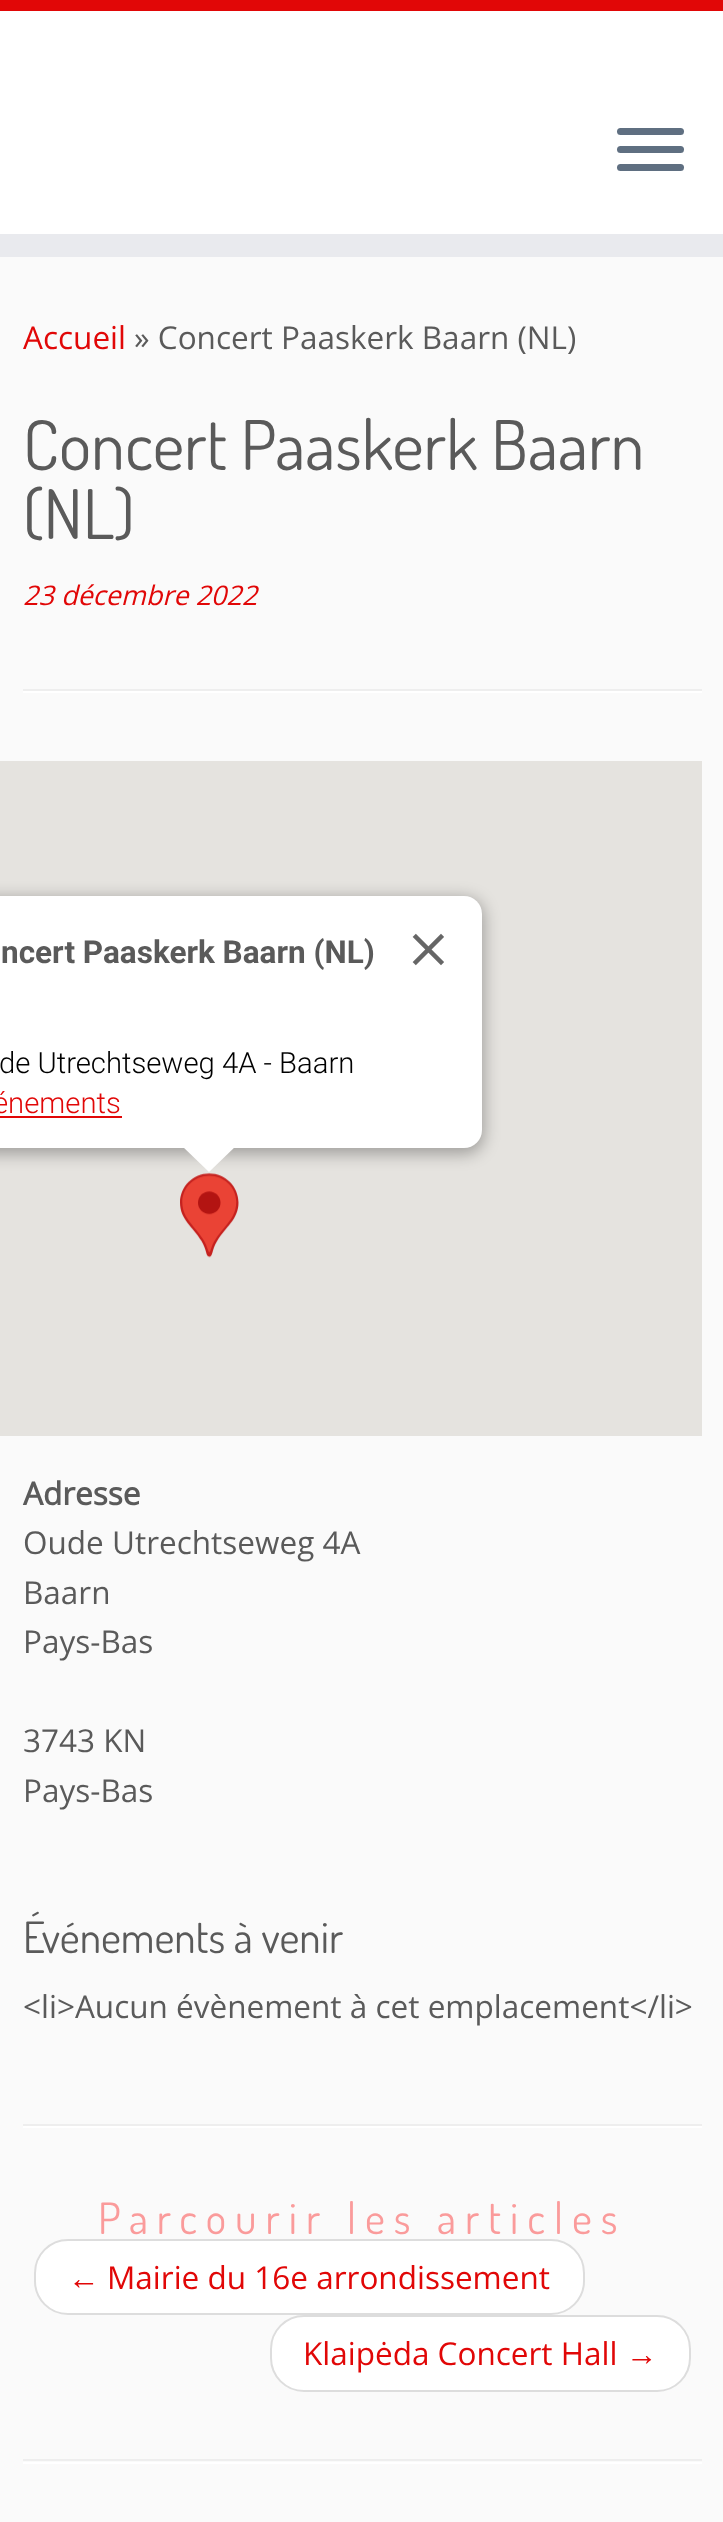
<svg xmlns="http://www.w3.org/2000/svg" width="723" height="2522">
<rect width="100%" height="100%" fill="#fafafa"/>
<rect y="11" width="723" height="223" fill="#fff"/>
<rect width="723" height="11" fill="#e10707"/>
<rect y="234" width="723" height="23" fill="#e9eaee"/>
<rect x="617" y="128" width="67" height="7" rx="3.5" fill="#5f6f81"/>
<rect x="617" y="146" width="67" height="7" rx="3.5" fill="#5f6f81"/>
<rect x="617" y="164" width="67" height="7" rx="3.5" fill="#5f6f81"/>
<text x="23" y="349" style="font-family:Open Sans;font-size:31.5px;fill:#e10707">Accueil</text>
<text x="134" y="349" style="font-family:Open Sans;font-size:31.5px;fill:#5a5a5a">» Concert Paaskerk Baarn (NL)</text>
<text x="23" y="470" style="font-family:Dosis;font-size:68.5px;fill:#5a5a5a">Concert Paaskerk Baarn</text>
<text x="23" y="539" style="font-family:Dosis;font-size:68.5px;fill:#5a5a5a">(NL)</text>
<text x="23" y="605" style="font-family:Open Sans;font-size:27px;font-style:italic;fill:#e10707">23 décembre 2022</text>
<rect x="23" y="689" width="679" height="2" fill="#eee"/>
<rect x="23" y="691" width="679" height="2" fill="#fff"/>
<rect y="761" width="702" height="675" fill="#e5e3df"/>
<image x="180" y="1173" width="59" height="85" href="media/2.png"/>
<rect x="-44" y="898" width="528" height="256" rx="20" fill="#0000004d" filter="blur(8px)"/>
<rect x="-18" y="896" width="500" height="252" rx="18" fill="#fff"/>
<text x="1" y="963" style="font-family:Roboto;font-size:31.5px;font-weight:bold;fill:#5a5a5a">ncert Paaskerk Baarn (NL)</text>
<image x="412" y="933" width="32" height="33" href="media/1.png"/>
<text x="-1" y="1073" style="font-family:Roboto;font-size:29.25px;font-weight:300;fill:#000">de Utrechtseweg 4A - Baarn</text>
<text x="-7" y="1113" style="font-family:Roboto;font-size:29.25px;font-weight:300;fill:#e10707">énements</text>
<rect y="1116" width="122" height="2" fill="#e10707"/>
<path d="M182 1145v1l27 26l28-27z" fill="#fff"/>
<text x="23" y="1505" style="font-family:Open Sans;font-size:31.5px;font-weight:bold;fill:#5a5a5a">Adresse</text>
<text x="23" y="1554" style="font-family:Open Sans;font-size:31.5px;fill:#5a5a5a">Oude Utrechtseweg 4A</text>
<text x="23" y="1604" style="font-family:Open Sans;font-size:31.5px;fill:#5a5a5a">Baarn</text>
<text x="23" y="1653" style="font-family:Open Sans;font-size:31.5px;fill:#5a5a5a">Pays-Bas</text>
<text x="23" y="1752" style="font-family:Open Sans;font-size:31.5px;fill:#5a5a5a">3743 KN</text>
<text x="23" y="1802" style="font-family:Open Sans;font-size:31.5px;fill:#5a5a5a">Pays-Bas</text>
<text x="23" y="1953" style="font-family:Dosis;font-size:43.25px;fill:#5a5a5a">Événements à venir</text>
<text x="23" y="2018" style="font-family:Open Sans;font-size:31.5px;fill:#5a5a5a">&lt;li&gt;Aucun évènement à cet emplacement&lt;/li&gt;</text>
<rect x="23" y="2124" width="679" height="2" fill="#eee"/>
<rect x="23" y="2126" width="679" height="2" fill="#fff"/>
<text x="98" y="2234" style="font-family:Dosis;font-size:43.25px;letter-spacing:9px;fill:#fa9b9b">Parcourir les articles</text>
<rect x="35" y="2240" width="549" height="74" rx="33" fill="#fff" stroke="#ddd" stroke-width="2"/>
<text x="68" y="2289" style="font-family:Liberation Serif;font-size:31.5px;fill:#e10707">←</text>
<text x="107" y="2289" style="font-family:Open Sans;font-size:31.5px;fill:#e10707">Mairie du 16e arrondissement</text>
<rect x="271" y="2316" width="419" height="75" rx="33" fill="#fff" stroke="#ddd" stroke-width="2"/>
<text x="303" y="2365" style="font-family:Open Sans;font-size:31.5px;fill:#e10707">Klaipėda Concert Hall</text>
<text x="626" y="2365" style="font-family:Liberation Serif;font-size:31.5px;fill:#e10707">→</text>
<rect x="23" y="2459" width="679" height="2" fill="#eee"/>
<rect x="23" y="2462" width="679" height="2" fill="#fff"/>
</svg>
